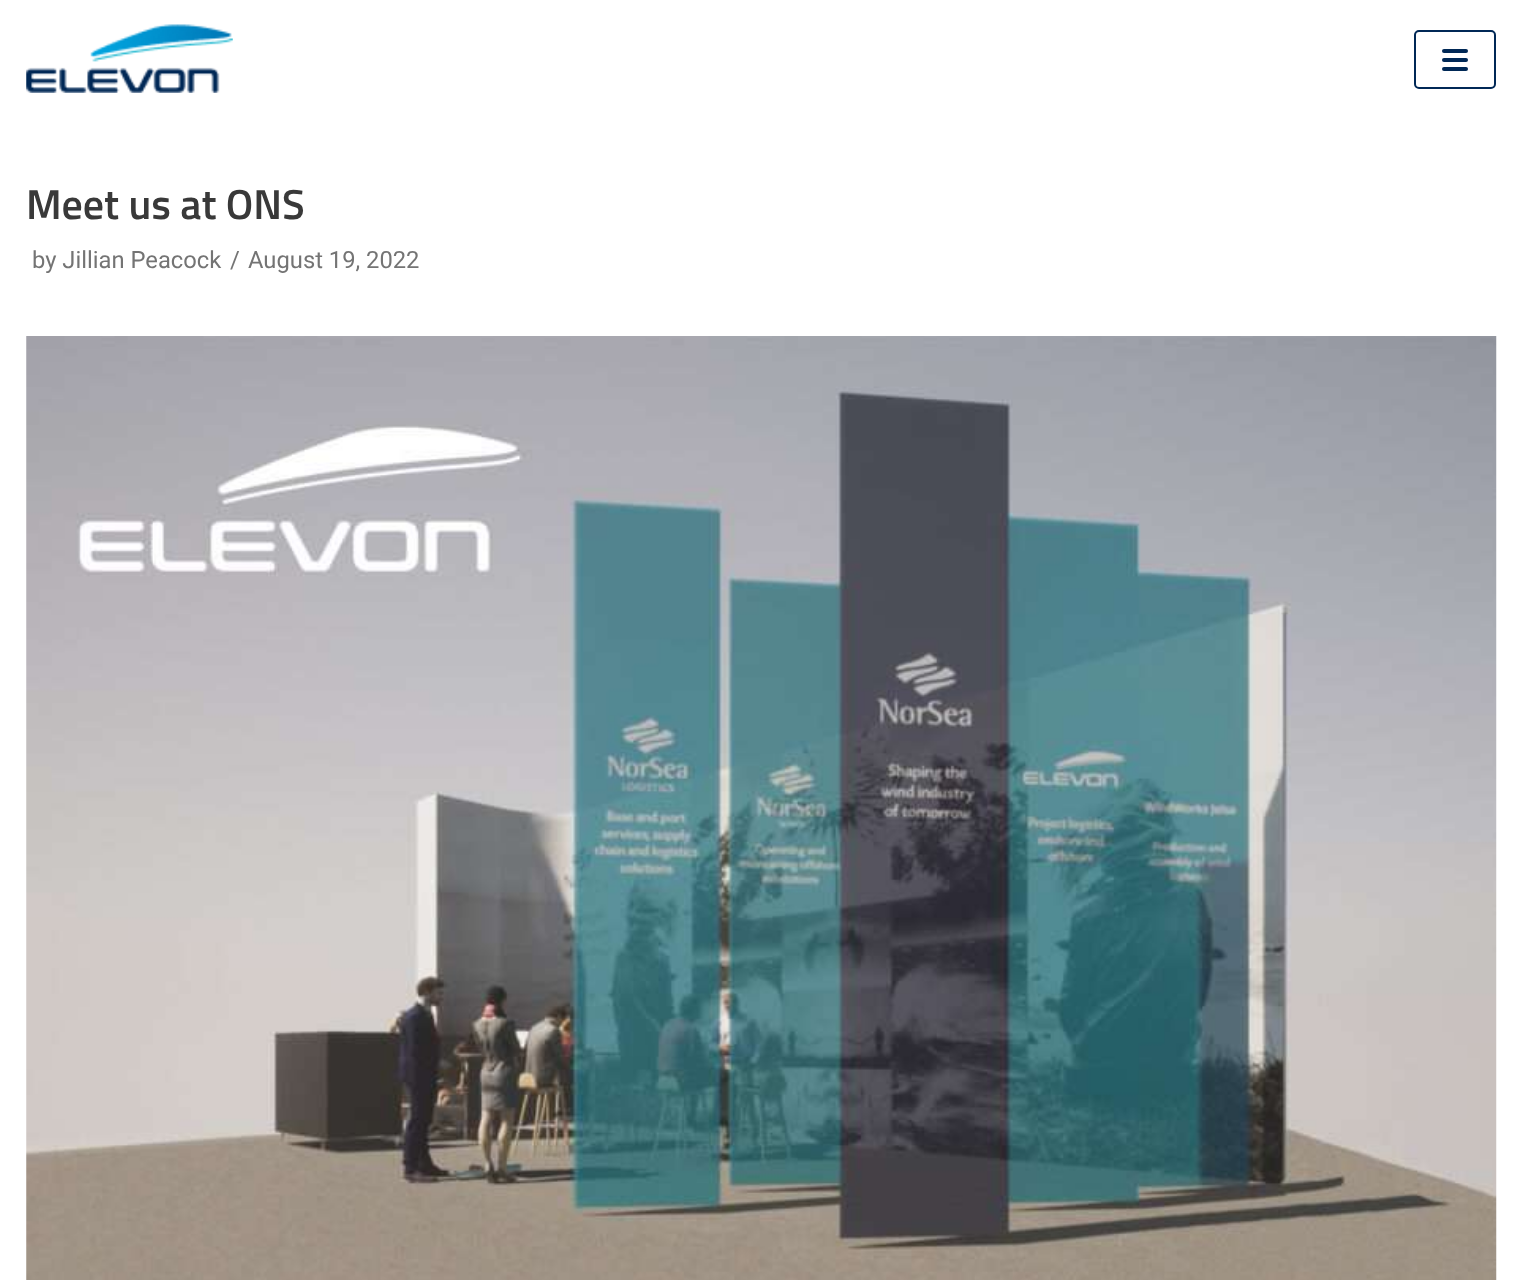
<svg xmlns="http://www.w3.org/2000/svg" width="1522" height="1280">
<rect width="100%" height="100%" fill="#fff"/>
<image x="26" y="24" width="207" height="69" href="media/1.png"/>
<rect x="1415" y="31" width="80" height="57" rx="4" fill="none" stroke="#002856" stroke-width="2"/>
<rect x="1442" y="49" width="26" height="4" rx="2" fill="#002856"/>
<rect x="1442" y="58" width="26" height="4" rx="2" fill="#002856"/>
<rect x="1442" y="67" width="26" height="4" rx="2" fill="#002856"/>
<text x="26" y="219" style="font-family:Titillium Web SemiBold;font-size:42px;font-weight:600;fill:#393939">Meet us at ONS</text>
<text x="32" y="268" style="font-family:Roboto;font-size:23.75px;fill:#747474">by Jillian Peacock</text>
<text x="230" y="268" style="font-family:Roboto;font-size:23.75px;fill:#747474">/</text>
<text x="248" y="268" style="font-family:Roboto;font-size:23.75px;fill:#747474">August 19, 2022</text>
<image x="26" y="336" width="1471" height="944" href="media/2.png"/>
</svg>
